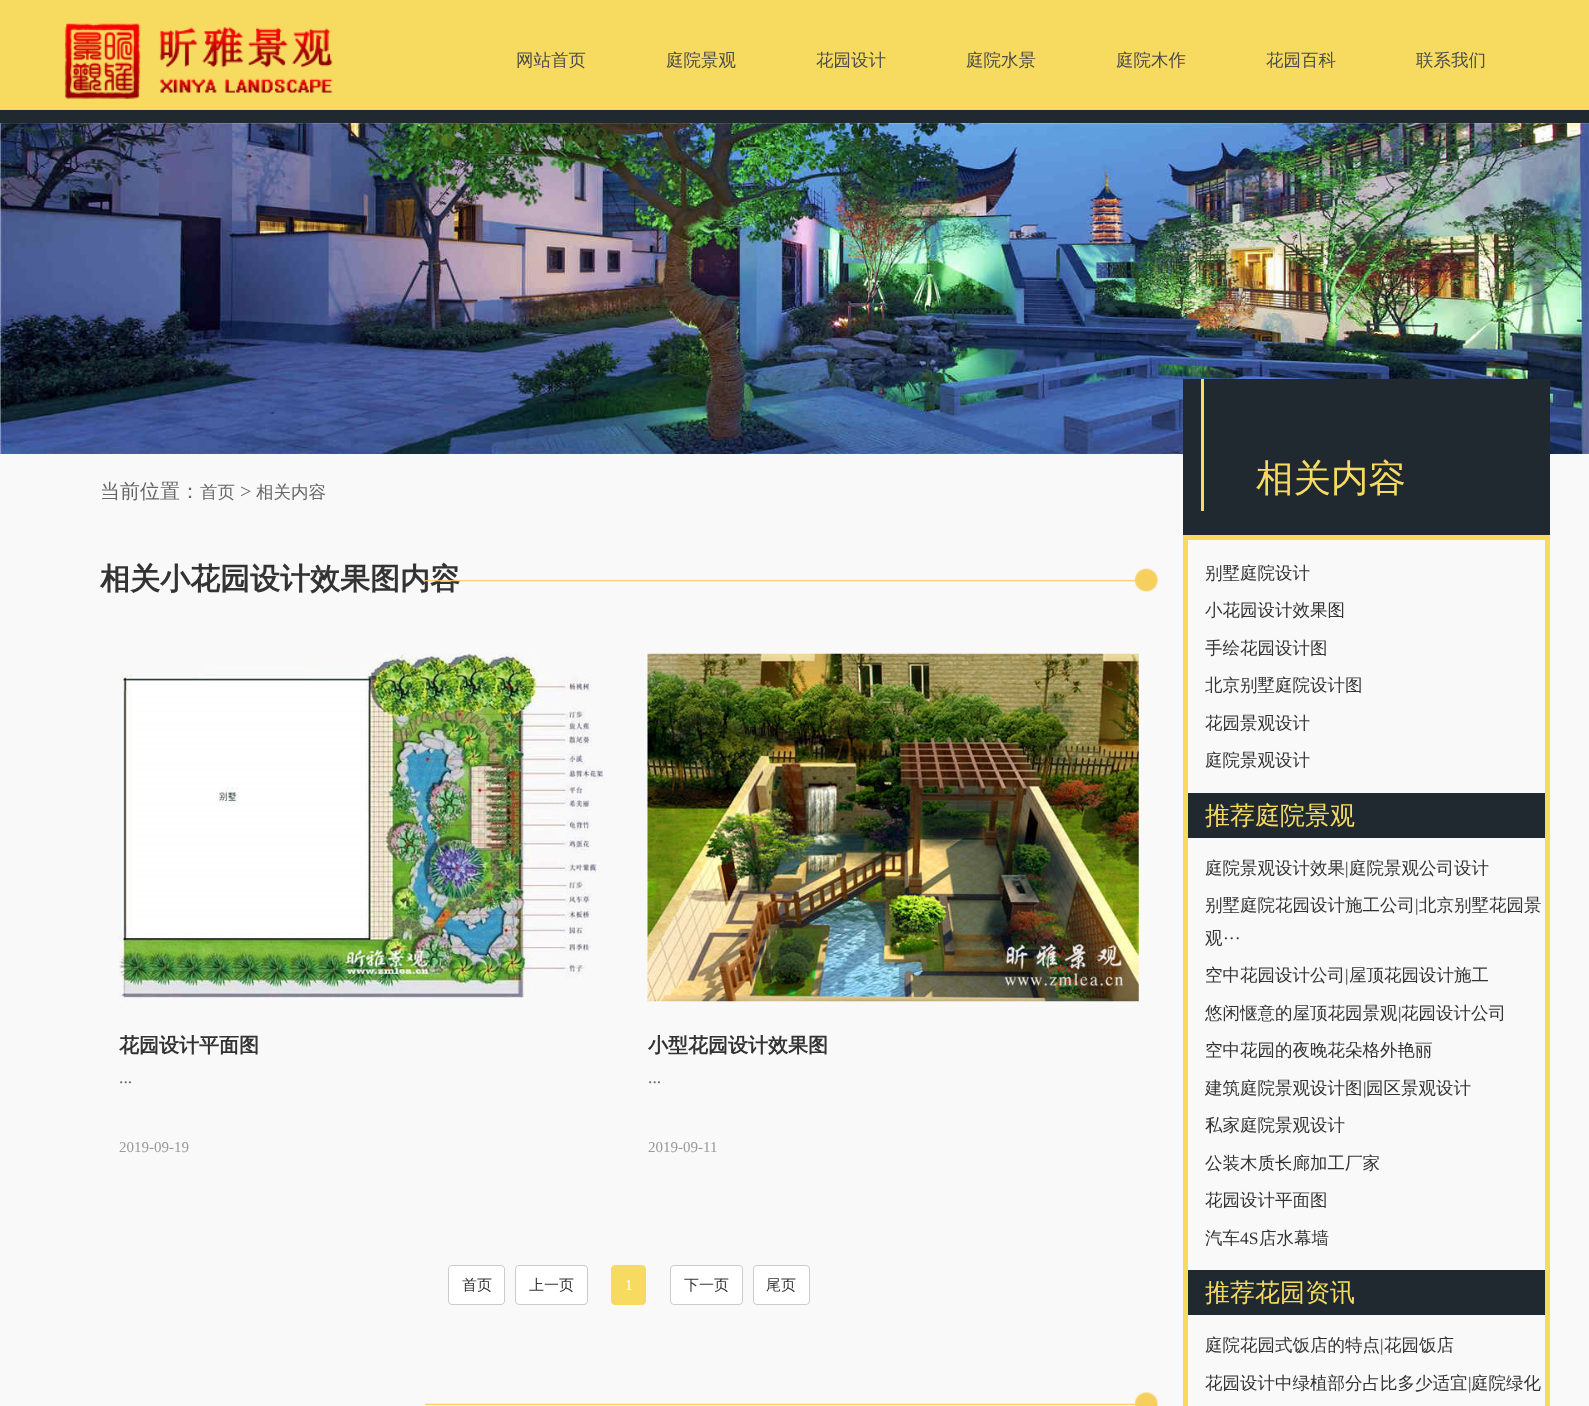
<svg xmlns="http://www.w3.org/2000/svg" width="1589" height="1406">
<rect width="100%" height="100%" fill="#f9f9f9"/>
<rect width="1589" height="110" fill="#f7db61"/>
<rect y="110" width="1589" height="13" fill="#1f292f"/>
<image x="64" y="23" width="269" height="76" href="media/1.png"/>
<text x="516" y="66" style="font-family:WenQuanYi Zen Hei;font-size:17.5px;font-weight:500;fill:#4c4c4c">网站首页</text>
<text x="666" y="66" style="font-family:WenQuanYi Zen Hei;font-size:17.5px;font-weight:500;fill:#4c4c4c">庭院景观</text>
<text x="816" y="66" style="font-family:WenQuanYi Zen Hei;font-size:17.5px;font-weight:500;fill:#4c4c4c">花园设计</text>
<text x="966" y="66" style="font-family:WenQuanYi Zen Hei;font-size:17.5px;font-weight:500;fill:#4c4c4c">庭院水景</text>
<text x="1116" y="66" style="font-family:WenQuanYi Zen Hei;font-size:17.5px;font-weight:500;fill:#4c4c4c">庭院木作</text>
<text x="1266" y="66" style="font-family:WenQuanYi Zen Hei;font-size:17.5px;font-weight:500;fill:#4c4c4c">花园百科</text>
<text x="1416" y="66" style="font-family:WenQuanYi Zen Hei;font-size:17.5px;font-weight:500;fill:#4c4c4c">联系我们</text>
<image x="0" y="123" width="1589" height="331" href="media/2.png"/>
<text x="100" y="498" style="font-family:WenQuanYi Zen Hei;font-size:20px;font-weight:500;fill:#666">当前位置：</text>
<text x="200" y="498" style="font-family:WenQuanYi Zen Hei;font-size:17.5px;font-weight:500;fill:#666">首页</text>
<text x="240" y="498" style="font-family:Liberation Serif;font-size:20px;fill:#666">&gt;</text>
<text x="256" y="498" style="font-family:WenQuanYi Zen Hei;font-size:17.5px;font-weight:500;fill:#666">相关内容</text>
<text x="100" y="589" style="font-family:WenQuanYi Zen Hei;font-size:30px;font-weight:bold;fill:#333">相关小花园设计效果图内容</text>
<image x="425" y="568" width="733" height="24" href="media/3.png"/>
<image x="119" y="653" width="486" height="348" href="media/4.png"/>
<text x="119" y="1052" style="font-family:WenQuanYi Zen Hei;font-size:20px;font-weight:bold;fill:#333">花园设计平面图</text>
<text x="119" y="1083" style="font-family:Liberation Serif;font-size:17.5px;fill:#666">...</text>
<text x="119" y="1152" style="font-family:Liberation Serif;font-size:15px;fill:#999">2019-09-19</text>
<image x="647" y="653" width="492" height="349" href="media/5.png"/>
<text x="648" y="1052" style="font-family:WenQuanYi Zen Hei;font-size:20px;font-weight:bold;fill:#333">小型花园设计效果图</text>
<text x="648" y="1083" style="font-family:Liberation Serif;font-size:17.5px;fill:#666">...</text>
<text x="648" y="1152" style="font-family:Liberation Serif;font-size:15px;fill:#999">2019-09-11</text>
<rect x="448.5" y="1265.5" width="56" height="39" rx="3.5" fill="#fff" stroke="#ccc"/>
<text x="462" y="1290" style="font-family:WenQuanYi Zen Hei;font-size:15px;font-weight:500;fill:#333">首页</text>
<rect x="515.5" y="1265.5" width="72" height="39" rx="3.5" fill="#fff" stroke="#ccc"/>
<text x="529" y="1290" style="font-family:WenQuanYi Zen Hei;font-size:15px;font-weight:500;fill:#333">上一页</text>
<rect x="611.5" y="1265.5" width="34" height="39" rx="3.5" fill="#f7db61" stroke="#f7db61"/>
<text x="625" y="1290" style="font-family:Liberation Serif;font-size:15px;fill:#fff">1</text>
<rect x="670.5" y="1265.5" width="72" height="39" rx="3.5" fill="#fff" stroke="#ccc"/>
<text x="684" y="1290" style="font-family:WenQuanYi Zen Hei;font-size:15px;font-weight:500;fill:#333">下一页</text>
<rect x="753.5" y="1265.5" width="56" height="39" rx="3.5" fill="#fff" stroke="#ccc"/>
<text x="766" y="1290" style="font-family:WenQuanYi Zen Hei;font-size:15px;font-weight:500;fill:#333">尾页</text>
<image x="425" y="1392" width="733" height="14" href="media/6.png"/>
<rect x="1183" y="379" width="367" height="156" fill="#1f292f"/>
<rect x="1201" y="379" width="3" height="132" fill="#f7db61"/>
<text x="1256" y="491" style="font-family:WenQuanYi Zen Hei;font-size:37.5px;font-weight:500;fill:#f7db61">相关内容</text>
<rect x="1185.5" y="537.5" width="362" height="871" fill="none" stroke="#f7db61" stroke-width="5"/>
<text x="1205" y="579" style="font-family:WenQuanYi Zen Hei;font-size:17.5px;font-weight:500;fill:#333">别墅庭院设计</text>
<text x="1205" y="616" style="font-family:WenQuanYi Zen Hei;font-size:17.5px;font-weight:500;fill:#333">小花园设计效果图</text>
<text x="1205" y="654" style="font-family:WenQuanYi Zen Hei;font-size:17.5px;font-weight:500;fill:#333">手绘花园设计图</text>
<text x="1205" y="691" style="font-family:WenQuanYi Zen Hei;font-size:17.5px;font-weight:500;fill:#333">北京别墅庭院设计图</text>
<text x="1205" y="729" style="font-family:WenQuanYi Zen Hei;font-size:17.5px;font-weight:500;fill:#333">花园景观设计</text>
<text x="1205" y="766" style="font-family:WenQuanYi Zen Hei;font-size:17.5px;font-weight:500;fill:#333">庭院景观设计</text>
<rect x="1188" y="793" width="357" height="45" fill="#1f292f"/>
<text x="1205" y="824" style="font-family:WenQuanYi Zen Hei;font-size:25px;font-weight:500;fill:#f7db61">推荐庭院景观</text>
<text x="1205" y="874" style="font-family:WenQuanYi Zen Hei;font-size:17.5px;font-weight:500;fill:#333">庭院景观设计效果</text>
<text x="1345" y="874" style="font-family:Liberation Serif;font-size:17.5px;fill:#333">|</text>
<text x="1349" y="874" style="font-family:WenQuanYi Zen Hei;font-size:17.5px;font-weight:500;fill:#333">庭院景观公司设计</text>
<text x="1205" y="911" style="font-family:WenQuanYi Zen Hei;font-size:17.5px;font-weight:500;fill:#333">别墅庭院花园设计施工公司</text>
<text x="1415" y="911" style="font-family:Liberation Serif;font-size:17.5px;fill:#333">|</text>
<text x="1419" y="911" style="font-family:WenQuanYi Zen Hei;font-size:17.5px;font-weight:500;fill:#333">北京别墅花园景</text>
<text x="1205" y="944" style="font-family:WenQuanYi Zen Hei;font-size:17.5px;font-weight:500;fill:#333">观</text>
<text x="1223" y="944" style="font-family:Liberation Serif;font-size:17.5px;fill:#333">···</text>
<text x="1205" y="981" style="font-family:WenQuanYi Zen Hei;font-size:17.5px;font-weight:500;fill:#333">空中花园设计公司</text>
<text x="1345" y="981" style="font-family:Liberation Serif;font-size:17.5px;fill:#333">|</text>
<text x="1349" y="981" style="font-family:WenQuanYi Zen Hei;font-size:17.5px;font-weight:500;fill:#333">屋顶花园设计施工</text>
<text x="1205" y="1019" style="font-family:WenQuanYi Zen Hei;font-size:17.5px;font-weight:500;fill:#333">悠闲惬意的屋顶花园景观</text>
<text x="1398" y="1019" style="font-family:Liberation Serif;font-size:17.5px;fill:#333">|</text>
<text x="1401" y="1019" style="font-family:WenQuanYi Zen Hei;font-size:17.5px;font-weight:500;fill:#333">花园设计公司</text>
<text x="1205" y="1056" style="font-family:WenQuanYi Zen Hei;font-size:17.5px;font-weight:500;fill:#333">空中花园的夜晚花朵格外艳丽</text>
<text x="1205" y="1094" style="font-family:WenQuanYi Zen Hei;font-size:17.5px;font-weight:500;fill:#333">建筑庭院景观设计图</text>
<text x="1363" y="1094" style="font-family:Liberation Serif;font-size:17.5px;fill:#333">|</text>
<text x="1366" y="1094" style="font-family:WenQuanYi Zen Hei;font-size:17.5px;font-weight:500;fill:#333">园区景观设计</text>
<text x="1205" y="1131" style="font-family:WenQuanYi Zen Hei;font-size:17.5px;font-weight:500;fill:#333">私家庭院景观设计</text>
<text x="1205" y="1169" style="font-family:WenQuanYi Zen Hei;font-size:17.5px;font-weight:500;fill:#333">公装木质长廊加工厂家</text>
<text x="1205" y="1206" style="font-family:WenQuanYi Zen Hei;font-size:17.5px;font-weight:500;fill:#333">花园设计平面图</text>
<text x="1205" y="1244" style="font-family:WenQuanYi Zen Hei;font-size:17.5px;font-weight:500;fill:#333">汽车</text>
<text x="1240" y="1244" style="font-family:Liberation Serif;font-size:17.5px;fill:#333">4S</text>
<text x="1259" y="1244" style="font-family:WenQuanYi Zen Hei;font-size:17.5px;font-weight:500;fill:#333">店水幕墙</text>
<rect x="1188" y="1270" width="357" height="45" fill="#1f292f"/>
<text x="1205" y="1301" style="font-family:WenQuanYi Zen Hei;font-size:25px;font-weight:500;fill:#f7db61">推荐花园资讯</text>
<text x="1205" y="1351" style="font-family:WenQuanYi Zen Hei;font-size:17.5px;font-weight:500;fill:#333">庭院花园式饭店的特点</text>
<text x="1380" y="1351" style="font-family:Liberation Serif;font-size:17.5px;fill:#333">|</text>
<text x="1384" y="1351" style="font-family:WenQuanYi Zen Hei;font-size:17.5px;font-weight:500;fill:#333">花园饭店</text>
<text x="1205" y="1389" style="font-family:WenQuanYi Zen Hei;font-size:17.5px;font-weight:500;fill:#333">花园设计中绿植部分占比多少适宜</text>
<text x="1468" y="1389" style="font-family:Liberation Serif;font-size:17.5px;fill:#333">|</text>
<text x="1471" y="1389" style="font-family:WenQuanYi Zen Hei;font-size:17.5px;font-weight:500;fill:#333">庭院绿化</text>
</svg>
